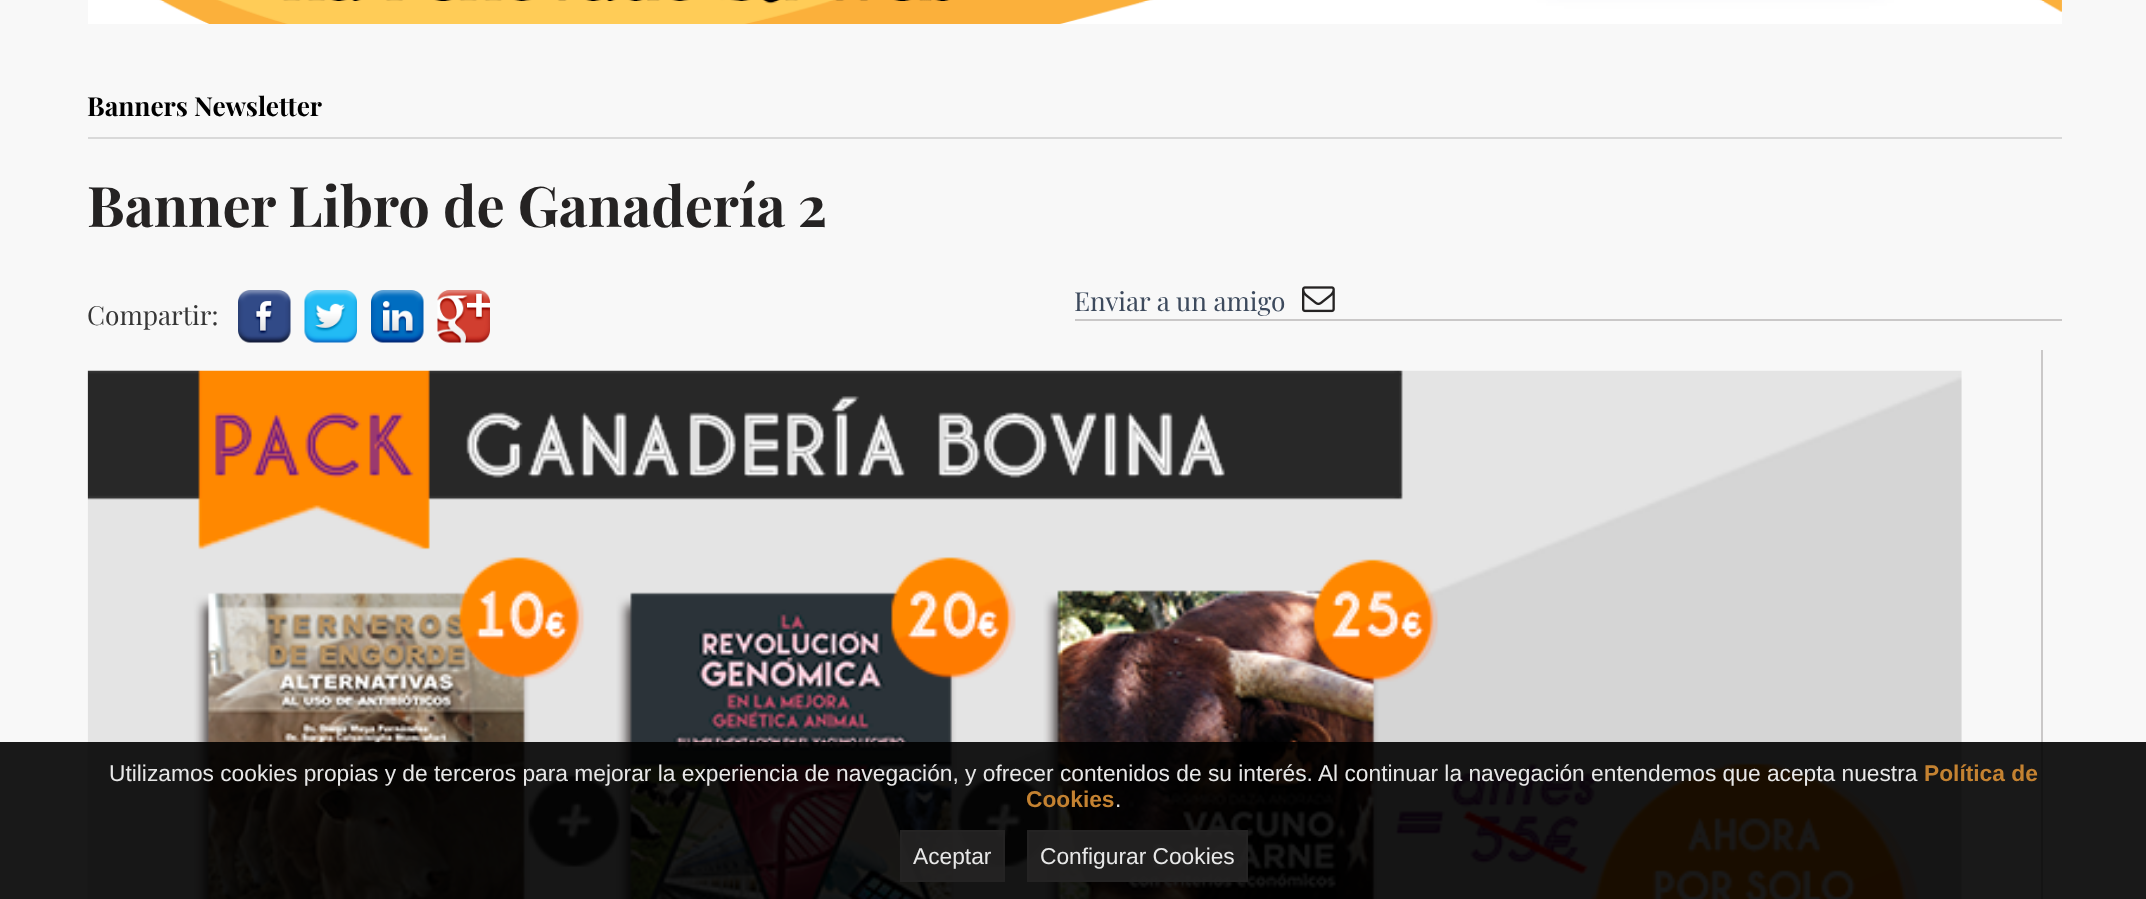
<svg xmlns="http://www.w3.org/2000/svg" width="2146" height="899">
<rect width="100%" height="100%" fill="#f8f8f8"/>
<image x="88" y="0" width="1974" height="24" href="media/1.png"/>
<text x="87" y="116" style="font-family:Playfair Display;font-size:26.25px;font-weight:bold;fill:#000">Banners Newsletter</text>
<rect x="88" y="137" width="1974" height="2" fill="#d9d9d9"/>
<text x="87" y="227" style="font-family:Playfair Display;font-size:56px;font-weight:bold;fill:#252323">Banner Libro de Ganadería 2</text>
<text x="87" y="325" style="font-family:Playfair Display;font-size:26.25px;fill:#363636">Compartir:</text>
<image x="238" y="290" width="53" height="53" href="media/2.png"/>
<image x="304" y="290" width="53" height="53" href="media/3.png"/>
<image x="371" y="290" width="53" height="53" href="media/4.png"/>
<image x="437" y="290" width="53" height="53" href="media/5.png"/>
<rect x="1075" y="319" width="987" height="2" fill="#cac8c8"/>
<text x="1074" y="311" style="font-family:Playfair Display;font-size:26.25px;fill:#3d4a5d">Enviar a un amigo</text>
<image x="1302" y="286" width="33" height="27" href="media/6.png"/>
<rect x="2041" y="350" width="2" height="549" fill="#cac8c8"/>
<image x="87" y="370" width="1875" height="529" href="media/7.png"/>
<rect y="742" width="2146" height="157" fill="#000000e6"/>
<text x="109" y="781" style="font-family:Liberation Sans;font-size:22.75px;fill:#e7e7e7">Utilizamos cookies propias y de terceros para mejorar la experiencia de navegación, y ofrecer contenidos de su interés. Al continuar la navegación entendemos que acepta nuestra</text>
<text x="1924" y="781" style="font-family:Liberation Sans;font-size:22.75px;font-weight:bold;fill:#c48231">Política de</text>
<text x="1026" y="807" style="font-family:Liberation Sans;font-size:22.75px;font-weight:bold;fill:#c48231">Cookies</text>
<text x="1115" y="807" style="font-family:Liberation Sans;font-size:22.75px;fill:#e7e7e7">.</text>
<rect x="900" y="830" width="105" height="52" fill="#252323e6"/>
<rect x="901" y="831" width="103" height="50" fill="none" stroke="#252323e6" stroke-width="2"/>
<text x="913" y="864" style="font-family:Liberation Sans;font-size:22.75px;fill:#e7e7e7">Aceptar</text>
<rect x="1027" y="830" width="221" height="52" fill="#252323e6"/>
<rect x="1028" y="831" width="219" height="50" fill="none" stroke="#252323e6" stroke-width="2"/>
<text x="1040" y="864" style="font-family:Liberation Sans;font-size:22.75px;fill:#e7e7e7">Configurar Cookies</text>
</svg>
